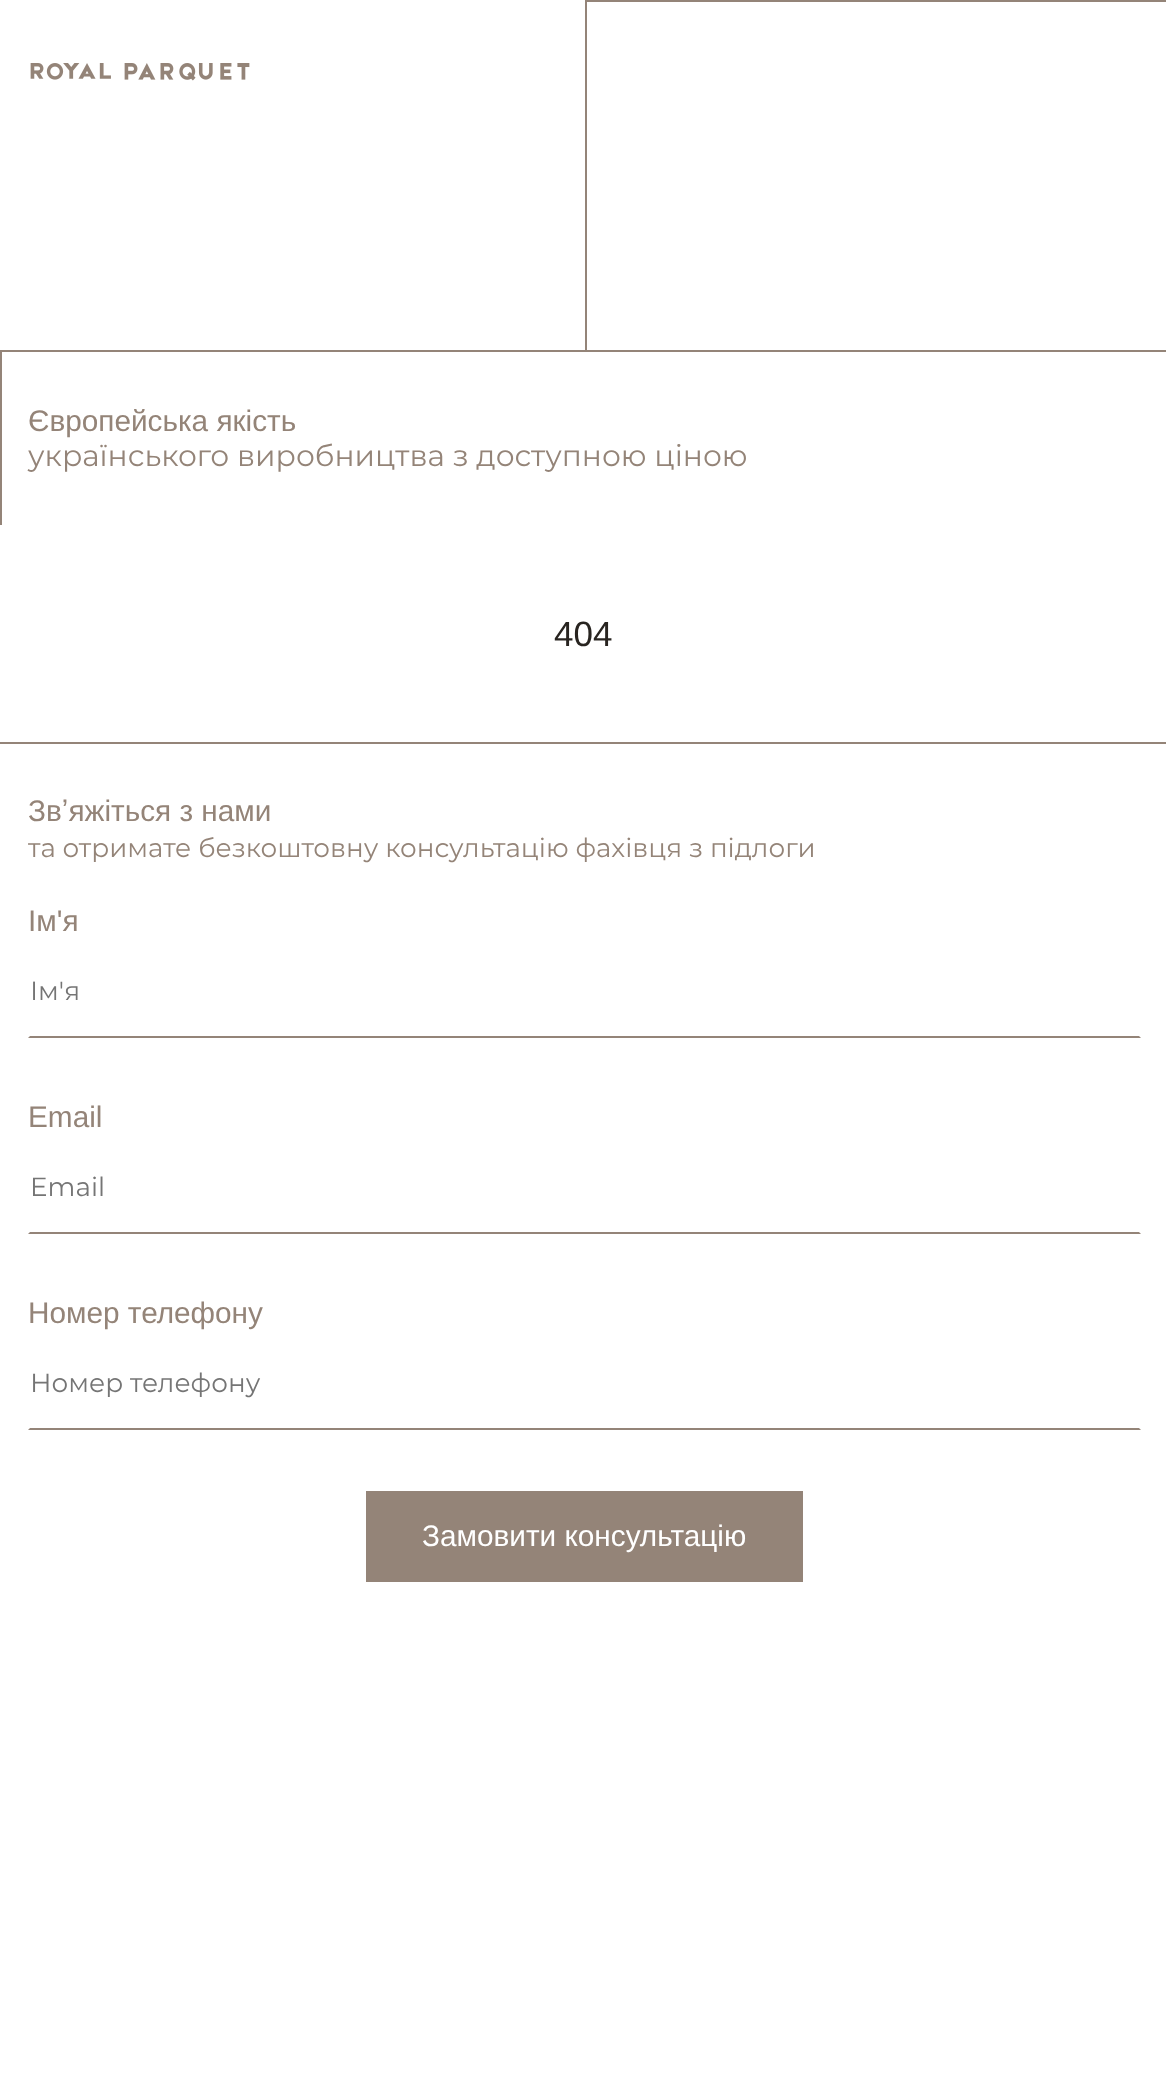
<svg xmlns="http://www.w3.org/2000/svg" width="1166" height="2087">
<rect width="100%" height="100%" fill="#fff"/>
<image x="30" y="63" width="220" height="18" href="media/1.png"/>
<rect x="585" width="581" height="2" fill="#948478"/>
<rect x="585" width="2" height="350" fill="#948478"/>
<rect y="350" width="1166" height="2" fill="#948478"/>
<rect y="350" width="2" height="175" fill="#948478"/>
<text x="28" y="431" style="font-family:Liberation Sans;font-size:29.75px;fill:#948478">Європейська якість</text>
<text x="28" y="466" style="font-family:Montserrat;font-size:29.75px;fill:#948478">українського виробництва з доступною ціною</text>
<text x="554" y="646" style="font-family:Liberation Sans;font-size:35px;fill:#282420">404</text>
<rect y="742" width="1166" height="2" fill="#948478"/>
<text x="28" y="821" style="font-family:Liberation Sans;font-size:29.75px;fill:#948478">Звʼяжіться з нами</text>
<text x="28" y="857" style="font-family:Montserrat;font-size:26.25px;fill:#948478">та отримате безкоштовну консультацію фахівця з підлоги</text>
<text x="28" y="931" style="font-family:Liberation Sans;font-size:29.75px;fill:#948478">Ім'я</text>
<path d="M1141 1038h-1113l2-2h1109z" fill="#948478"/>
<text x="30" y="1000" style="font-family:Montserrat;font-size:26.25px;fill:#757575">Ім'я</text>
<text x="28" y="1127" style="font-family:Liberation Sans;font-size:29.75px;fill:#948478">Email</text>
<path d="M1141 1234h-1113l2-2h1109z" fill="#948478"/>
<text x="30" y="1196" style="font-family:Montserrat;font-size:26.25px;fill:#757575">Email</text>
<text x="28" y="1323" style="font-family:Liberation Sans;font-size:29.75px;fill:#948478">Номер телефону</text>
<path d="M1141 1430h-1113l2-2h1109z" fill="#948478"/>
<text x="30" y="1392" style="font-family:Montserrat;font-size:26.25px;fill:#757575">Номер телефону</text>
<rect x="366" y="1491" width="437" height="91" fill="#948478"/>
<text x="422" y="1546" style="font-family:Liberation Sans;font-size:29.75px;fill:#fff">Замовити консультацію</text>
</svg>
